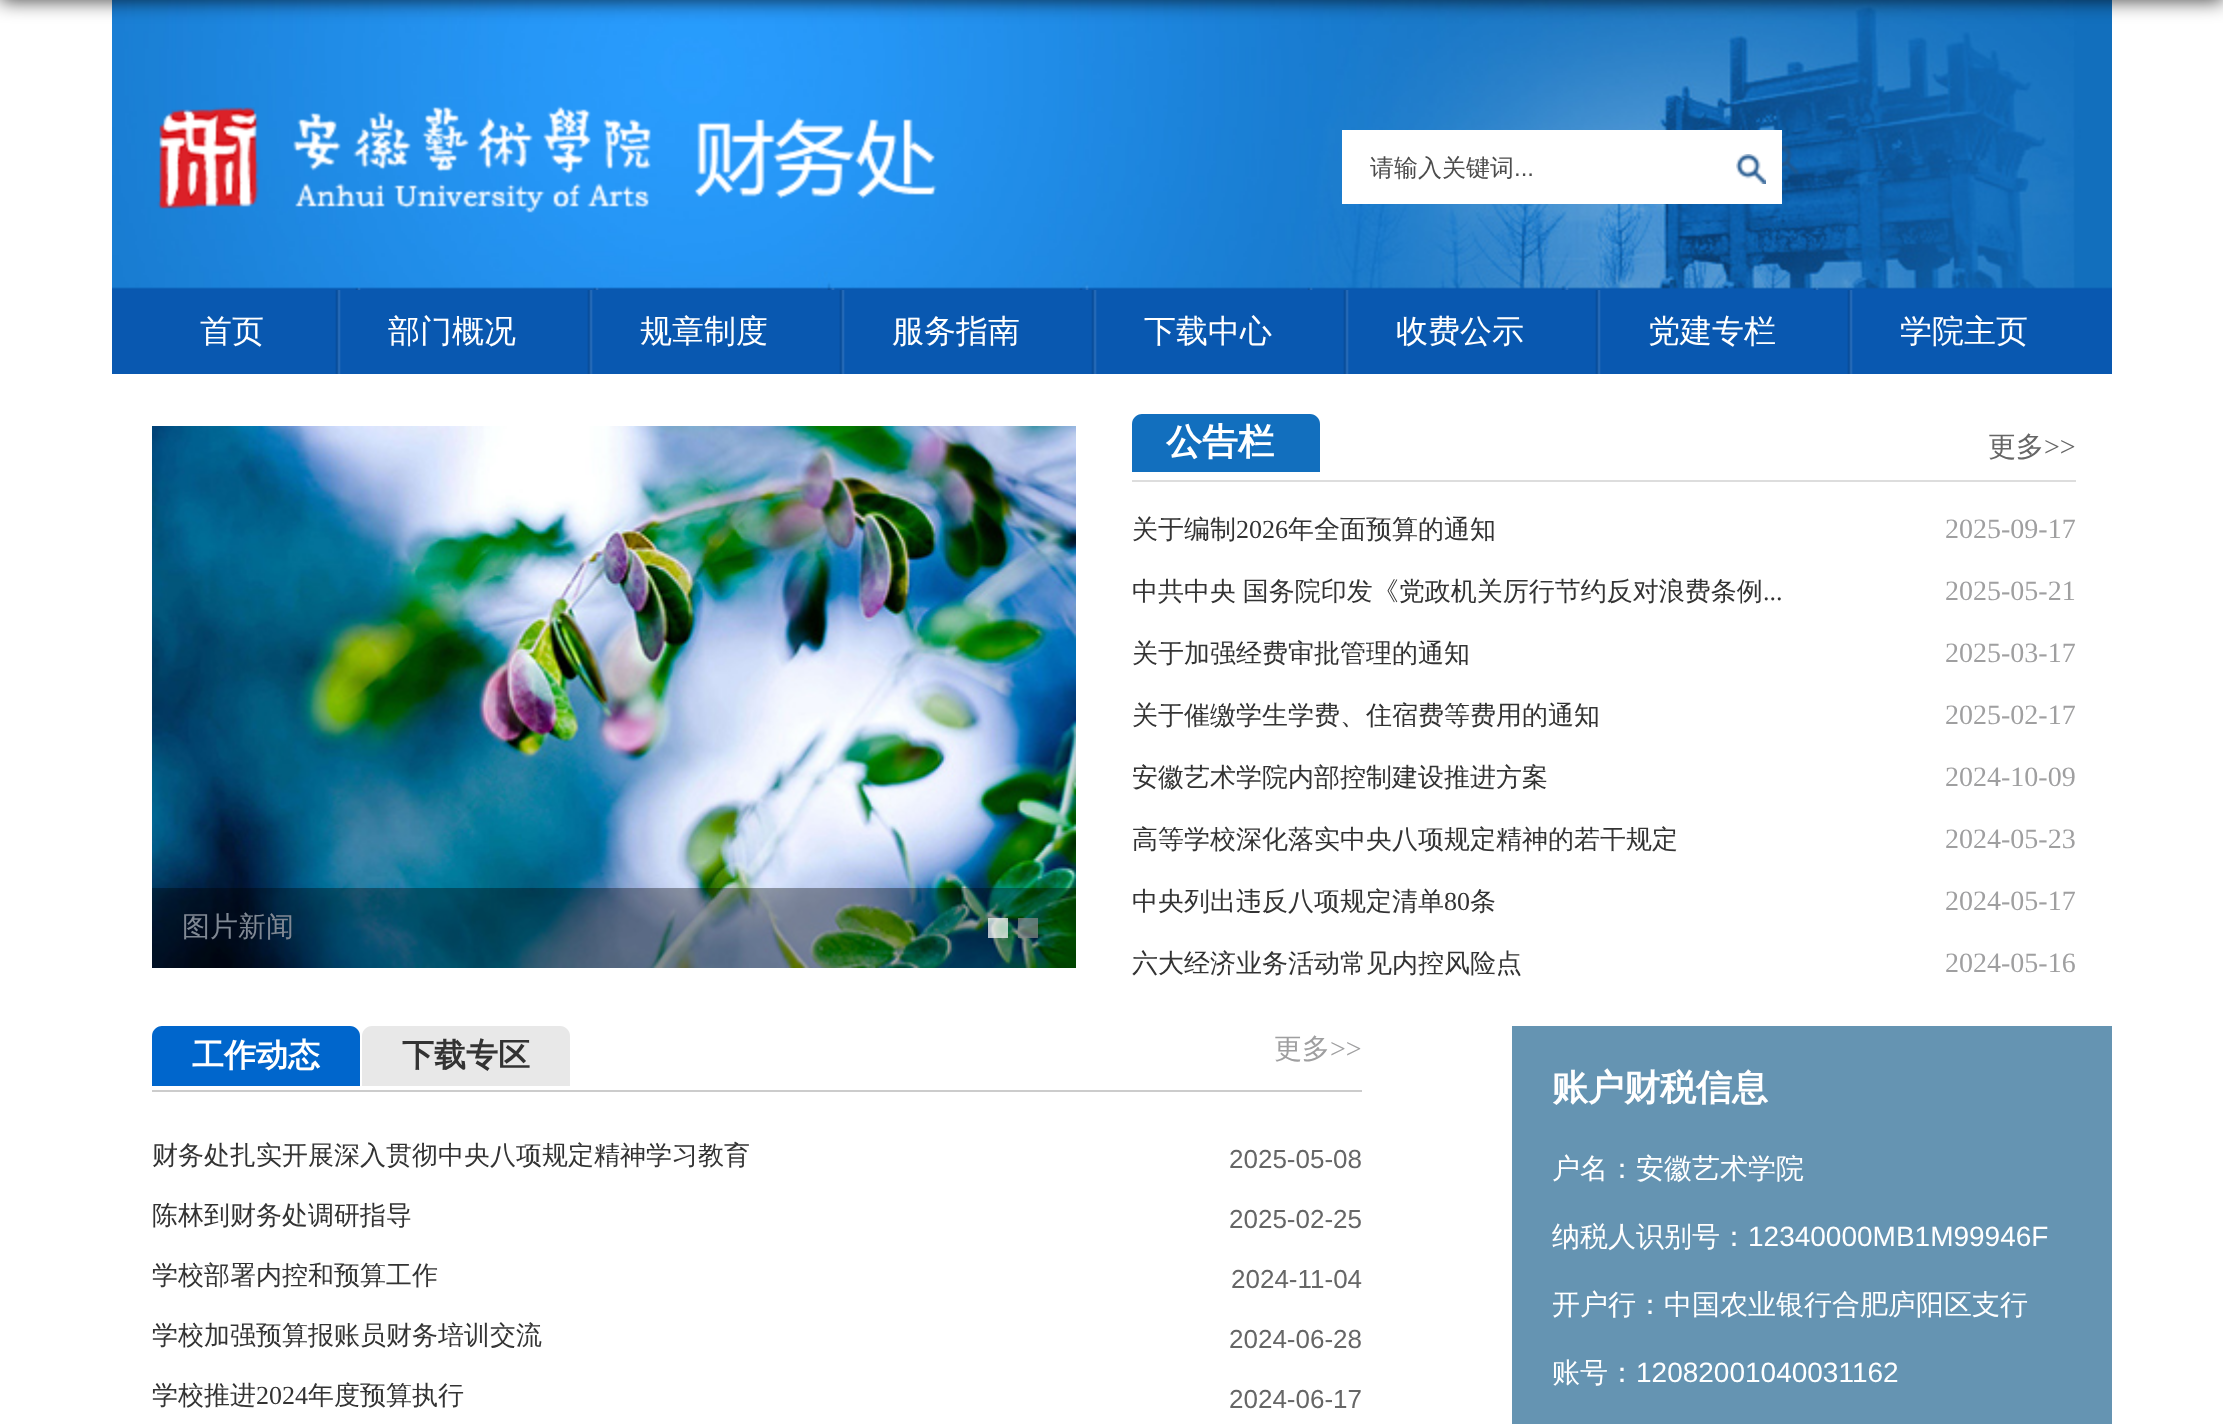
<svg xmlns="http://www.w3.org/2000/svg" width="2223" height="1424">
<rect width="100%" height="100%" fill="#fff"/>
<image x="112" y="0" width="2000" height="290" href="media/1.png"/>
<rect y="-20" width="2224" height="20" fill="#000000cc" filter="blur(10px)"/>
<image x="157" y="105" width="494" height="108" href="media/2.png"/>
<image x="694" y="117" width="243" height="82" href="media/3.png"/>
<rect x="1342" y="130" width="440" height="74" fill="#fff"/>
<text x="1370" y="176" style="font-family:WenQuanYi Zen Hei;font-size:24px;font-weight:500;fill:#4c4c4c">请输入关键词</text>
<text x="1514" y="176" style="font-family:Liberation Sans;font-size:24px;fill:#4c4c4c">...</text>
<image x="1736" y="154" width="30" height="30" href="media/4.png"/>
<rect x="112" y="290" width="2000" height="84" fill="#0958b0"/>
<text x="200" y="342" style="font-family:WenQuanYi Zen Hei;font-size:32px;font-weight:500;fill:#fff">首页</text>
<image x="335" y="290" width="6" height="84" href="media/5.png"/>
<text x="388" y="342" style="font-family:WenQuanYi Zen Hei;font-size:32px;font-weight:500;fill:#fff">部门概况</text>
<image x="587" y="290" width="6" height="84" href="media/5.png"/>
<text x="640" y="342" style="font-family:WenQuanYi Zen Hei;font-size:32px;font-weight:500;fill:#fff">规章制度</text>
<image x="839" y="290" width="6" height="84" href="media/5.png"/>
<text x="892" y="342" style="font-family:WenQuanYi Zen Hei;font-size:32px;font-weight:500;fill:#fff">服务指南</text>
<image x="1091" y="290" width="6" height="84" href="media/5.png"/>
<text x="1144" y="342" style="font-family:WenQuanYi Zen Hei;font-size:32px;font-weight:500;fill:#fff">下载中心</text>
<image x="1343" y="290" width="6" height="84" href="media/5.png"/>
<text x="1396" y="342" style="font-family:WenQuanYi Zen Hei;font-size:32px;font-weight:500;fill:#fff">收费公示</text>
<image x="1595" y="290" width="6" height="84" href="media/5.png"/>
<text x="1648" y="342" style="font-family:WenQuanYi Zen Hei;font-size:32px;font-weight:500;fill:#fff">党建专栏</text>
<image x="1847" y="290" width="6" height="84" href="media/5.png"/>
<text x="1900" y="342" style="font-family:WenQuanYi Zen Hei;font-size:32px;font-weight:500;fill:#fff">学院主页</text>
<image x="152" y="426" width="924" height="542" href="media/6.png"/>
<rect x="152" y="888" width="924" height="80" fill="#00000059"/>
<text x="182" y="936" style="font-family:WenQuanYi Zen Hei;font-size:28px;font-weight:500;fill:#808994">图片新闻</text>
<rect x="988" y="918" width="20" height="20" fill="#ffffffb3"/>
<rect x="1018" y="918" width="20" height="20" fill="#87898ab3"/>
<rect x="1132" y="480" width="944" height="2" fill="#ddd"/>
<path d="M1142 414h168c5.5 0 10 4.5 10 10v48h-188v-48c0-5.5 4.5-10 10-10z" fill="#126fbe"/>
<text x="1166" y="454" style="font-family:WenQuanYi Zen Hei;font-size:36px;font-weight:bold;fill:#fff">公告栏</text>
<text x="1988" y="456" style="font-family:WenQuanYi Zen Hei;font-size:28px;font-weight:500;fill:#666">更多</text>
<text x="2044" y="456" style="font-family:Liberation Serif;font-size:28px;fill:#666">&gt;&gt;</text>
<text x="1132" y="538" style="font-family:WenQuanYi Zen Hei;font-size:26px;font-weight:500;fill:#333">关于编制</text>
<text x="1236" y="538" style="font-family:Liberation Serif;font-size:26px;fill:#333">2026</text>
<text x="1288" y="538" style="font-family:WenQuanYi Zen Hei;font-size:26px;font-weight:500;fill:#333">年全面预算的通知</text>
<text x="1945" y="538" style="font-family:Liberation Serif;font-size:28px;fill:#9f9fa0">2025-09-17</text>
<text x="1132" y="600" word-spacing="-1" style="font-family:WenQuanYi Zen Hei;font-size:26px;font-weight:500;fill:#333">中共中央 国务院印发《党政机关厉行节约反对浪费条例</text>
<text x="1763" y="600" style="font-family:Liberation Serif;font-size:26px;fill:#333">...</text>
<text x="1945" y="600" style="font-family:Liberation Serif;font-size:28px;fill:#9f9fa0">2025-05-21</text>
<text x="1132" y="662" style="font-family:WenQuanYi Zen Hei;font-size:26px;font-weight:500;fill:#333">关于加强经费审批管理的通知</text>
<text x="1945" y="662" style="font-family:Liberation Serif;font-size:28px;fill:#9f9fa0">2025-03-17</text>
<text x="1132" y="724" style="font-family:WenQuanYi Zen Hei;font-size:26px;font-weight:500;fill:#333">关于催缴学生学费、住宿费等费用的通知</text>
<text x="1945" y="724" style="font-family:Liberation Serif;font-size:28px;fill:#9f9fa0">2025-02-17</text>
<text x="1132" y="786" style="font-family:WenQuanYi Zen Hei;font-size:26px;font-weight:500;fill:#333">安徽艺术学院内部控制建设推进方案</text>
<text x="1945" y="786" style="font-family:Liberation Serif;font-size:28px;fill:#9f9fa0">2024-10-09</text>
<text x="1132" y="848" style="font-family:WenQuanYi Zen Hei;font-size:26px;font-weight:500;fill:#333">高等学校深化落实中央八项规定精神的若干规定</text>
<text x="1945" y="848" style="font-family:Liberation Serif;font-size:28px;fill:#9f9fa0">2024-05-23</text>
<text x="1132" y="910" style="font-family:WenQuanYi Zen Hei;font-size:26px;font-weight:500;fill:#333">中央列出违反八项规定清单</text>
<text x="1444" y="910" style="font-family:Liberation Serif;font-size:26px;fill:#333">80</text>
<text x="1470" y="910" style="font-family:WenQuanYi Zen Hei;font-size:26px;font-weight:500;fill:#333">条</text>
<text x="1945" y="910" style="font-family:Liberation Serif;font-size:28px;fill:#9f9fa0">2024-05-17</text>
<text x="1132" y="972" style="font-family:WenQuanYi Zen Hei;font-size:26px;font-weight:500;fill:#333">六大经济业务活动常见内控风险点</text>
<text x="1945" y="972" style="font-family:Liberation Serif;font-size:28px;fill:#9f9fa0">2024-05-16</text>
<text x="1274" y="1058" style="font-family:WenQuanYi Zen Hei;font-size:28px;font-weight:500;fill:#9f9fa0">更多</text>
<text x="1330" y="1058" style="font-family:Liberation Serif;font-size:28px;fill:#9f9fa0">&gt;&gt;</text>
<text x="152" y="1164" style="font-family:WenQuanYi Zen Hei;font-size:26px;font-weight:500;fill:#333">财务处扎实开展深入贯彻中央八项规定精神学习教育</text>
<text x="1229" y="1168" style="font-family:Liberation Sans;font-size:26px;fill:#666">2025-05-08</text>
<text x="152" y="1224" style="font-family:WenQuanYi Zen Hei;font-size:26px;font-weight:500;fill:#333">陈林到财务处调研指导</text>
<text x="1229" y="1228" style="font-family:Liberation Sans;font-size:26px;fill:#666">2025-02-25</text>
<text x="152" y="1284" style="font-family:WenQuanYi Zen Hei;font-size:26px;font-weight:500;fill:#333">学校部署内控和预算工作</text>
<text x="1231" y="1288" style="font-family:Liberation Sans;font-size:26px;fill:#666">2024-11-04</text>
<text x="152" y="1344" style="font-family:WenQuanYi Zen Hei;font-size:26px;font-weight:500;fill:#333">学校加强预算报账员财务培训交流</text>
<text x="1229" y="1348" style="font-family:Liberation Sans;font-size:26px;fill:#666">2024-06-28</text>
<text x="152" y="1404" style="font-family:WenQuanYi Zen Hei;font-size:26px;font-weight:500;fill:#333">学校推进</text>
<text x="256" y="1404" style="font-family:Liberation Serif;font-size:26px;fill:#333">2024</text>
<text x="308" y="1404" style="font-family:WenQuanYi Zen Hei;font-size:26px;font-weight:500;fill:#333">年度预算执行</text>
<text x="1229" y="1408" style="font-family:Liberation Sans;font-size:26px;fill:#666">2024-06-17</text>
<rect x="152" y="1090" width="1210" height="2" fill="#ccc"/>
<path d="M162 1026h188c5.5 0 10 4.5 10 10v50h-208v-50c0-5.5 4.5-10 10-10z" fill="#06c"/>
<text x="192" y="1066" style="font-family:WenQuanYi Zen Hei;font-size:32px;font-weight:bold;fill:#fff">工作动态</text>
<path d="M372 1026h188c5.5 0 10 4.5 10 10v50h-208v-50c0-5.5 4.5-10 10-10z" fill="#e8e8e8"/>
<text x="402" y="1066" style="font-family:WenQuanYi Zen Hei;font-size:32px;font-weight:bold;fill:#333">下载专区</text>
<rect x="1512" y="1026" width="600" height="398" fill="#6594b2"/>
<text x="1552" y="1100" style="font-family:WenQuanYi Zen Hei;font-size:36px;font-weight:bold;fill:#fff">账户财税信息</text>
<text x="1552" y="1178" style="font-family:WenQuanYi Zen Hei;font-size:28px;font-weight:500;fill:#fff">户名：安徽艺术学院</text>
<text x="1552" y="1246" style="font-family:WenQuanYi Zen Hei;font-size:28px;font-weight:500;fill:#fff">纳税人识别号：</text>
<text x="1748" y="1246" style="font-family:Liberation Sans;font-size:28px;fill:#fff">12340000MB1M99946F</text>
<text x="1552" y="1314" style="font-family:WenQuanYi Zen Hei;font-size:28px;font-weight:500;fill:#fff">开户行：中国农业银行合肥庐阳区支行</text>
<text x="1552" y="1382" style="font-family:WenQuanYi Zen Hei;font-size:28px;font-weight:500;fill:#fff">账号：</text>
<text x="1636" y="1382" style="font-family:Liberation Sans;font-size:28px;fill:#fff">12082001040031162</text>
</svg>
